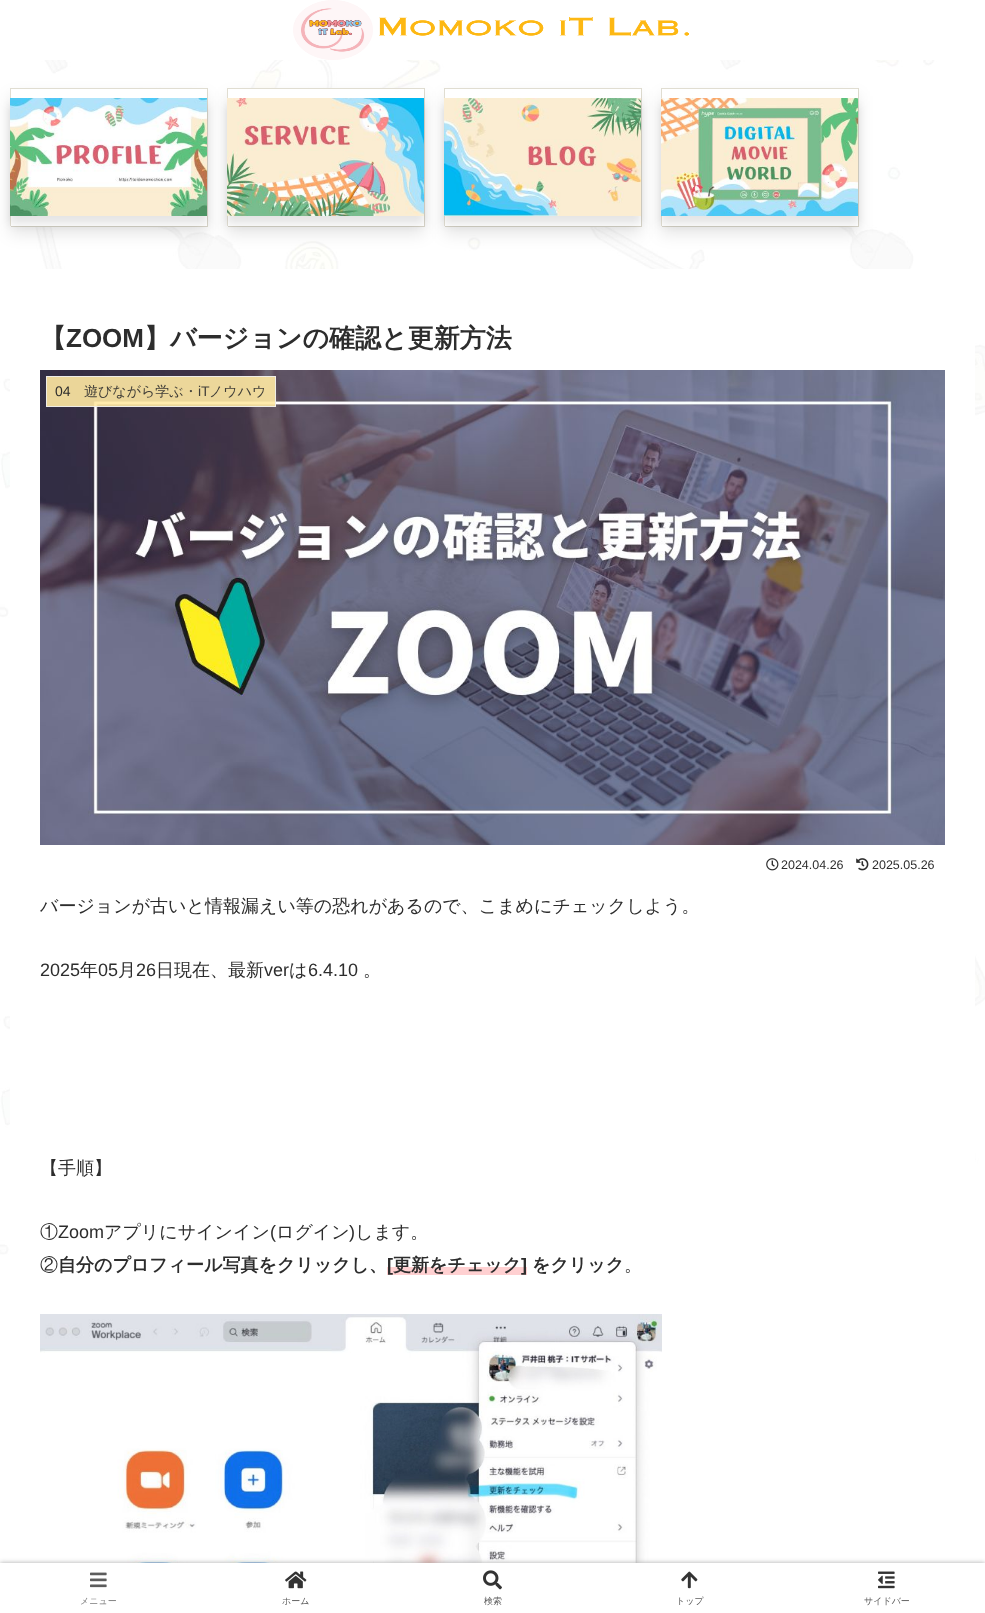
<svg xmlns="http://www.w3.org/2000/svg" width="985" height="1613">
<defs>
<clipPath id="clip1"><rect x="10" y="88" width="197" height="138"/></clipPath>
<clipPath id="clip2"><path d="M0 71h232v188h-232zm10 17h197v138h-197z" clip-rule="evenodd"/></clipPath>
<clipPath id="clip3"><rect x="227" y="88" width="197" height="138"/></clipPath>
<clipPath id="clip4"><path d="M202 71h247v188h-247zm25 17h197v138h-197z" clip-rule="evenodd"/></clipPath>
<clipPath id="clip5"><rect x="444" y="88" width="197" height="138"/></clipPath>
<clipPath id="clip6"><path d="M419 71h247v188h-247zm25 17h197v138h-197z" clip-rule="evenodd"/></clipPath>
<clipPath id="clip7"><rect x="661" y="88" width="197" height="138"/></clipPath>
<clipPath id="clip8"><path d="M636 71h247v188h-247zm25 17h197v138h-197z" clip-rule="evenodd"/></clipPath>
</defs>
<rect width="100%" height="100%" fill="#fff"/>
<image x="0" y="60" width="985" height="1503" href="media/1.png"/>
<image x="293" y="0" width="396" height="60" href="media/2.png"/>
<rect x="207" y="88" width="1" height="1" fill="#e0ddd1"/>
<path d="M11 226v1h197v-138h-1v137z" fill="#e0ddd1"/>
<rect x="31" y="89" width="141" height="137" fill="#fff"/>
<g clip-path="url(#clip1)">
<path d="M-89-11h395v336h-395zm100 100h197v138h-197z" fill="#e0ddd1" fill-rule="evenodd"/>
</g>
<g clip-path="url(#clip2)">
<rect x="10" y="96" width="197" height="138" fill="#0000001a" filter="blur(8px)"/>
</g>
<rect x="10" y="106" width="197" height="118" fill="#0000001a" filter="blur(4px)"/>
<image x="10" y="98" width="197" height="118" href="media/3.png"/>
<rect x="424" y="88" width="1" height="1" fill="#e0ddd1"/>
<path d="M228 226v1h197v-138h-1v137z" fill="#e0ddd1"/>
<rect x="250" y="89" width="145" height="95" fill="#fff"/>
<g clip-path="url(#clip3)">
<path d="M128-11h395v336h-395zm100 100h197v138h-197z" fill="#e0ddd1" fill-rule="evenodd"/>
</g>
<g clip-path="url(#clip4)">
<rect x="227" y="96" width="197" height="138" fill="#0000001a" filter="blur(8px)"/>
</g>
<rect x="227" y="106" width="197" height="118" fill="#0000001a" filter="blur(4px)"/>
<image x="227" y="98" width="197" height="118" href="media/4.png"/>
<rect x="641" y="88" width="1" height="1" fill="#e0ddd1"/>
<path d="M445 226v1h197v-138h-1v137z" fill="#e0ddd1"/>
<rect x="445" y="94" width="190" height="132" fill="#fff"/>
<g clip-path="url(#clip5)">
<path d="M345-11h395v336h-395zm100 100h197v138h-197z" fill="#e0ddd1" fill-rule="evenodd"/>
</g>
<g clip-path="url(#clip6)">
<rect x="444" y="96" width="197" height="138" fill="#0000001a" filter="blur(8px)"/>
</g>
<rect x="444" y="106" width="197" height="118" fill="#0000001a" filter="blur(4px)"/>
<image x="444" y="98" width="197" height="118" href="media/5.png"/>
<rect x="858" y="88" width="1" height="1" fill="#e0ddd1"/>
<path d="M662 226v1h197v-138h-1v137z" fill="#e0ddd1"/>
<rect x="686" y="92" width="163" height="134" fill="#fff"/>
<g clip-path="url(#clip7)">
<path d="M562-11h395v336h-395zm100 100h197v138h-197z" fill="#e0ddd1" fill-rule="evenodd"/>
</g>
<g clip-path="url(#clip8)">
<rect x="661" y="96" width="197" height="138" fill="#0000001a" filter="blur(8px)"/>
</g>
<rect x="661" y="106" width="197" height="118" fill="#0000001a" filter="blur(4px)"/>
<image x="661" y="98" width="197" height="118" href="media/6.png"/>
<rect x="10" y="269" width="965" height="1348" rx="4" fill="#fff"/>
<text x="40" y="347" style="font-family:WenQuanYi Zen Hei;font-size:26px;font-weight:bold;fill:#2d2d2d">【</text>
<text x="66" y="347" style="font-family:Liberation Sans;font-size:26px;font-weight:bold;fill:#2d2d2d">ZOOM</text>
<text x="144" y="347" style="font-family:WenQuanYi Zen Hei;font-size:26px;font-weight:bold;fill:#2d2d2d">】バージョンの確認と更新方法</text>
<image x="40" y="370" width="905" height="475" href="media/7.png"/>
<rect x="46" y="376" width="230" height="31" fill="#ffe9a3e6"/>
<rect x="46.5" y="376.5" width="229" height="30" fill="none" stroke="#eeeeeee6"/>
<text x="55" y="396" style="font-family:Liberation Sans;font-size:14px;fill:#2d2d2d">04</text>
<text x="84" y="396" style="font-family:WenQuanYi Zen Hei;font-size:14px;font-weight:500;fill:#403e38">遊びながら学ぶ・</text>
<text x="198" y="396" style="font-family:Liberation Sans;font-size:14px;fill:#403e38">iT</text>
<text x="209" y="396" style="font-family:WenQuanYi Zen Hei;font-size:14px;font-weight:500;fill:#403e38">ノウハウ</text>
<image x="766" y="858" width="13" height="13" href="media/8.png"/>
<text x="781" y="869" style="font-family:Liberation Sans;font-size:12.5px;fill:#2d2d2d">2024.04.26</text>
<image x="856" y="858" width="13" height="13" href="media/9.png"/>
<text x="872" y="869" style="font-family:Liberation Sans;font-size:12.5px;fill:#2d2d2d">2025.05.26</text>
<text x="40" y="912" style="font-family:WenQuanYi Zen Hei;font-size:18px;font-weight:500;fill:#2d2d2d">バージョンが古いと情報漏えい等の恐れがあるので、こまめにチェックしよう。</text>
<text x="40" y="976" style="font-family:Liberation Sans;font-size:18px;fill:#2d2d2d">2025</text>
<text x="80" y="976" style="font-family:WenQuanYi Zen Hei;font-size:18px;font-weight:500;fill:#2d2d2d">年</text>
<text x="98" y="976" style="font-family:Liberation Sans;font-size:18px;fill:#2d2d2d">05</text>
<text x="118" y="976" style="font-family:WenQuanYi Zen Hei;font-size:18px;font-weight:500;fill:#2d2d2d">月</text>
<text x="136" y="976" style="font-family:Liberation Sans;font-size:18px;fill:#2d2d2d">26</text>
<text x="156" y="976" style="font-family:WenQuanYi Zen Hei;font-size:18px;font-weight:500;fill:#2d2d2d">日現在、最新</text>
<text x="264" y="976" style="font-family:Liberation Sans;font-size:18px;fill:#2d2d2d">ver</text>
<text x="289" y="976" style="font-family:WenQuanYi Zen Hei;font-size:18px;font-weight:500;fill:#2d2d2d">は</text>
<text x="308" y="976" style="font-family:Liberation Sans;font-size:18px;fill:#2d2d2d">6.4.10</text>
<text x="363" y="976" style="font-family:WenQuanYi Zen Hei;font-size:18px;font-weight:500;fill:#2d2d2d">。</text>
<text x="40" y="1174" style="font-family:WenQuanYi Zen Hei;font-size:18px;font-weight:500;fill:#2d2d2d">【手順】</text>
<text x="40" y="1238" style="font-family:WenQuanYi Zen Hei;font-size:18px;font-weight:500;fill:#2d2d2d">①</text>
<text x="58" y="1238" style="font-family:Liberation Sans;font-size:18px;fill:#2d2d2d">Zoom</text>
<text x="104" y="1238" style="font-family:WenQuanYi Zen Hei;font-size:18px;font-weight:500;fill:#2d2d2d">アプリにサインイン</text>
<text x="270" y="1238" style="font-family:Liberation Sans;font-size:18px;fill:#2d2d2d">(</text>
<text x="276" y="1238" style="font-family:WenQuanYi Zen Hei;font-size:18px;font-weight:500;fill:#2d2d2d">ログイン</text>
<text x="349" y="1238" style="font-family:Liberation Sans;font-size:18px;fill:#2d2d2d">)</text>
<text x="355" y="1238" style="font-family:WenQuanYi Zen Hei;font-size:18px;font-weight:500;fill:#2d2d2d">します。</text>
<text x="40" y="1271" style="font-family:WenQuanYi Zen Hei;font-size:18px;font-weight:500;fill:#2d2d2d">②</text>
<text x="58" y="1271" style="font-family:WenQuanYi Zen Hei;font-size:18px;font-weight:bold;fill:#2d2d2d">自分のプロフィール写真をクリックし、</text>
<rect x="387" y="1267" width="140" height="8" fill="#ffd0d1"/>
<text x="387" y="1271" style="font-family:Liberation Sans;font-size:18px;font-weight:bold;fill:#2d2d2d">[</text>
<text x="393" y="1271" style="font-family:WenQuanYi Zen Hei;font-size:18px;font-weight:bold;fill:#2d2d2d">更新をチェック</text>
<text x="521" y="1271" style="font-family:Liberation Sans;font-size:18px;font-weight:bold;fill:#2d2d2d">]</text>
<text x="532" y="1271" style="font-family:WenQuanYi Zen Hei;font-size:18px;font-weight:bold;fill:#2d2d2d">をクリック</text>
<text x="624" y="1271" style="font-family:WenQuanYi Zen Hei;font-size:18px;font-weight:500;fill:#2d2d2d">。</text>
<image x="40" y="1314" width="622" height="249" href="media/10.png"/>
<rect y="1563" width="985" height="50" fill="#a9a9a9" filter="blur(2.5px)"/>
<rect y="1563" width="985" height="50" fill="#fff"/>
<image x="90" y="1572" width="17" height="16" href="media/11.png"/>
<text x="80" y="1604" style="font-family:WenQuanYi Zen Hei;font-size:9px;font-weight:500;fill:#7c7c7c">メニュー</text>
<image x="285" y="1571" width="22" height="18" href="media/12.png"/>
<text x="282" y="1604" style="font-family:WenQuanYi Zen Hei;font-size:9px;font-weight:500;fill:#5c5c5c">ホーム</text>
<image x="483" y="1570" width="19" height="20" href="media/13.png"/>
<text x="484" y="1604" style="font-family:WenQuanYi Zen Hei;font-size:9px;font-weight:500;fill:#5c5c5c">検索</text>
<image x="681" y="1571" width="17" height="18" href="media/14.png"/>
<text x="676" y="1604" style="font-family:WenQuanYi Zen Hei;font-size:9px;font-weight:500;fill:#5c5c5c">トップ</text>
<image x="878" y="1571" width="17" height="18" href="media/15.png"/>
<text x="864" y="1604" style="font-family:WenQuanYi Zen Hei;font-size:9px;font-weight:500;fill:#5c5c5c">サイドバー</text>
</svg>
